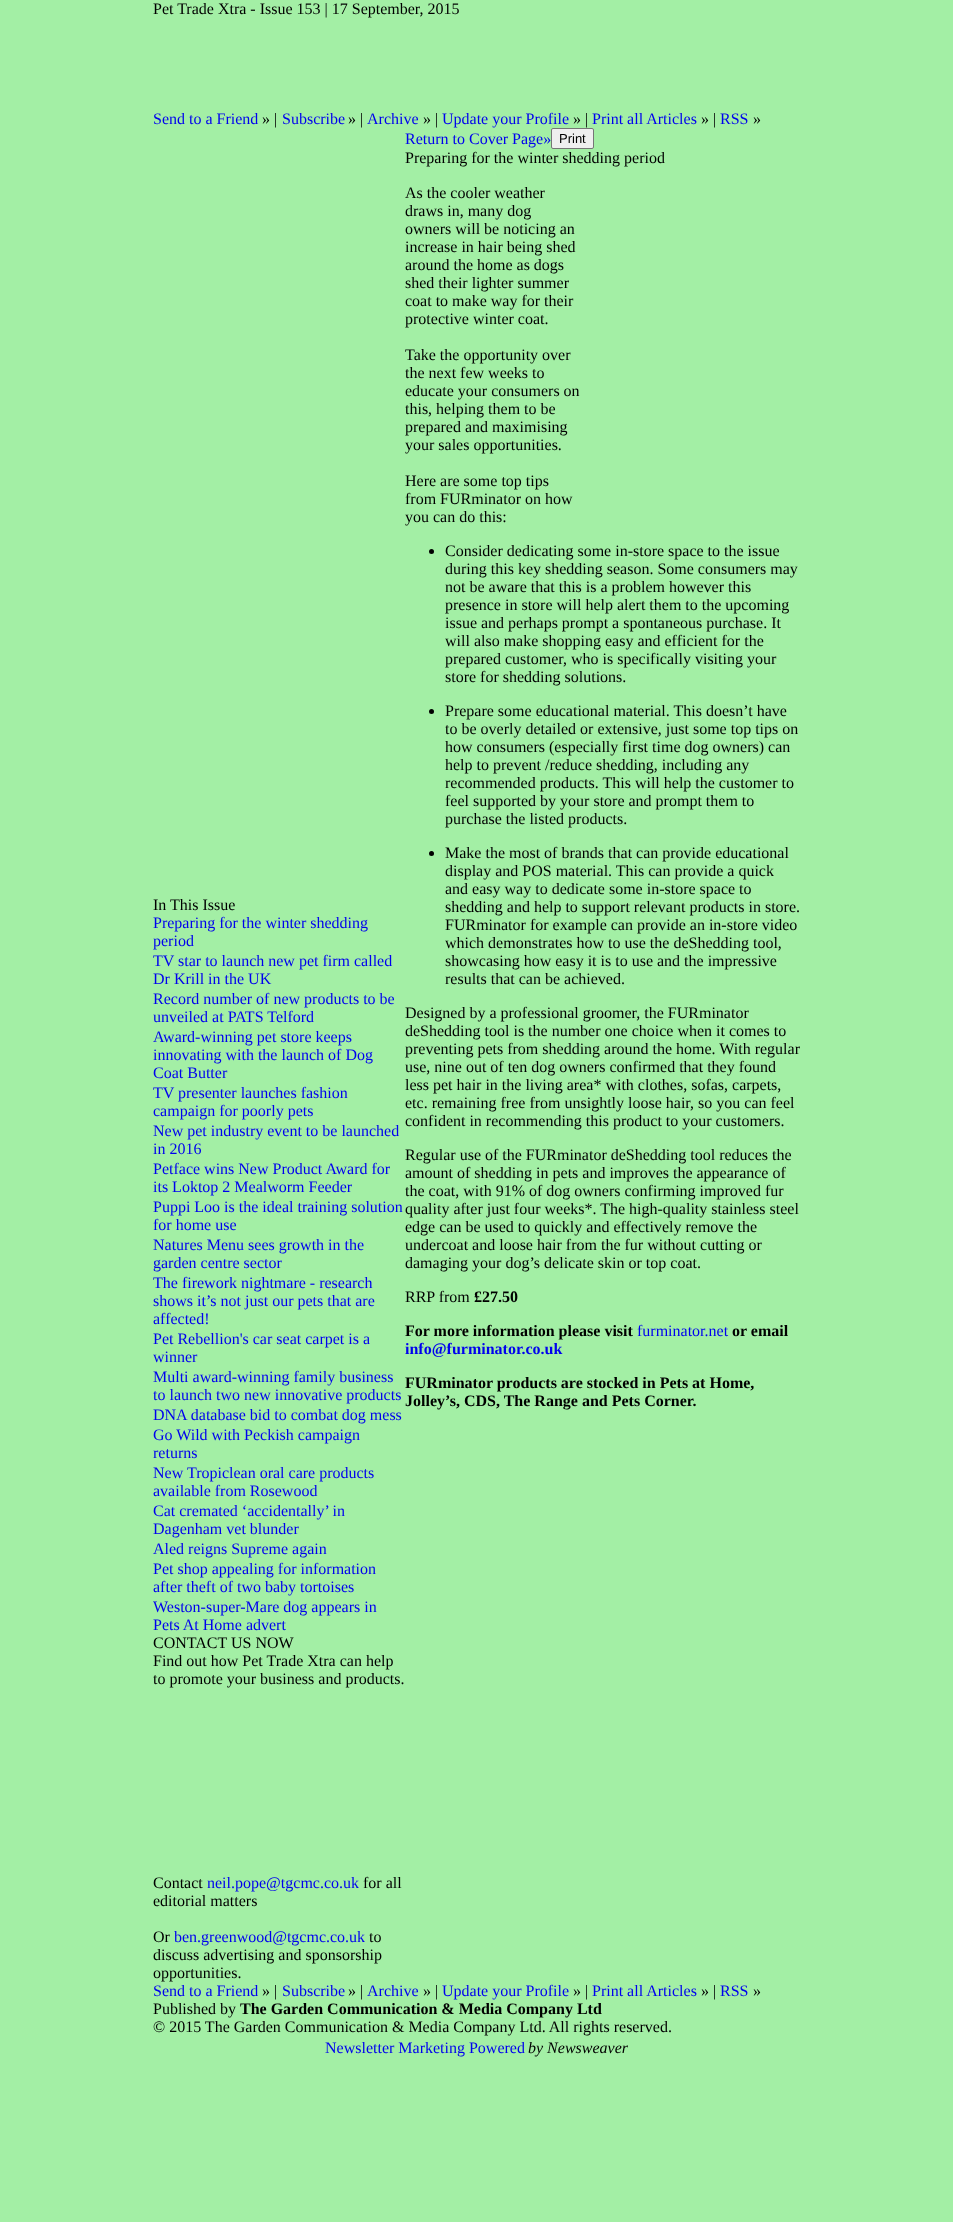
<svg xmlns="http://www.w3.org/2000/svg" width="953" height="2222">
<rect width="100%" height="100%" fill="#a3efa5"/>
<text x="153" y="14" style="font-family:Liberation Serif;font-size:16px;fill:#000">Pet Trade Xtra - Issue 153 | 17 September, 2015</text>
<text x="153" y="124" style="font-family:Liberation Serif;font-size:16px;fill:#00e">Send to a Friend</text>
<text x="262" y="124" style="font-family:Liberation Serif;font-size:16px;fill:#000">» |</text>
<text x="282" y="124" style="font-family:Liberation Serif;font-size:16px;fill:#00e">Subscribe</text>
<text x="348" y="124" style="font-family:Liberation Serif;font-size:16px;fill:#000">» |</text>
<text x="367" y="124" style="font-family:Liberation Serif;font-size:16px;fill:#00e">Archive</text>
<text x="423" y="124" style="font-family:Liberation Serif;font-size:16px;fill:#000">» |</text>
<text x="442" y="124" style="font-family:Liberation Serif;font-size:16px;fill:#00e">Update your Profile</text>
<text x="573" y="124" style="font-family:Liberation Serif;font-size:16px;fill:#000">» |</text>
<text x="592" y="124" style="font-family:Liberation Serif;font-size:16px;fill:#00e">Print all Articles</text>
<text x="701" y="124" style="font-family:Liberation Serif;font-size:16px;fill:#000">» |</text>
<text x="720" y="124" style="font-family:Liberation Serif;font-size:16px;fill:#00e">RSS</text>
<text x="753" y="124" style="font-family:Liberation Serif;font-size:16px;fill:#000">»</text>
<text x="153" y="910" style="font-family:Liberation Serif;font-size:16px;fill:#000">In This Issue</text>
<text x="153" y="928" style="font-family:Liberation Serif;font-size:16px;fill:#00e">Preparing for the winter shedding</text>
<text x="153" y="946" style="font-family:Liberation Serif;font-size:16px;fill:#00e">period</text>
<text x="153" y="966" style="font-family:Liberation Serif;font-size:16px;fill:#00e">TV star to launch new pet firm called</text>
<text x="153" y="984" style="font-family:Liberation Serif;font-size:16px;fill:#00e">Dr Krill in the UK</text>
<text x="153" y="1004" style="font-family:Liberation Serif;font-size:16px;fill:#00e">Record number of new products to be</text>
<text x="153" y="1022" style="font-family:Liberation Serif;font-size:16px;fill:#00e">unveiled at PATS Telford</text>
<text x="153" y="1042" style="font-family:Liberation Serif;font-size:16px;fill:#00e">Award-winning pet store keeps</text>
<text x="153" y="1060" style="font-family:Liberation Serif;font-size:16px;fill:#00e">innovating with the launch of Dog</text>
<text x="153" y="1078" style="font-family:Liberation Serif;font-size:16px;fill:#00e">Coat Butter</text>
<text x="153" y="1098" style="font-family:Liberation Serif;font-size:16px;fill:#00e">TV presenter launches fashion</text>
<text x="153" y="1116" style="font-family:Liberation Serif;font-size:16px;fill:#00e">campaign for poorly pets</text>
<text x="153" y="1136" style="font-family:Liberation Serif;font-size:16px;fill:#00e">New pet industry event to be launched</text>
<text x="153" y="1154" style="font-family:Liberation Serif;font-size:16px;fill:#00e">in 2016</text>
<text x="153" y="1174" style="font-family:Liberation Serif;font-size:16px;fill:#00e">Petface wins New Product Award for</text>
<text x="153" y="1192" style="font-family:Liberation Serif;font-size:16px;fill:#00e">its Loktop 2 Mealworm Feeder</text>
<text x="153" y="1212" style="font-family:Liberation Serif;font-size:16px;fill:#00e">Puppi Loo is the ideal training solution</text>
<text x="153" y="1230" style="font-family:Liberation Serif;font-size:16px;fill:#00e">for home use</text>
<text x="153" y="1250" style="font-family:Liberation Serif;font-size:16px;fill:#00e">Natures Menu sees growth in the</text>
<text x="153" y="1268" style="font-family:Liberation Serif;font-size:16px;fill:#00e">garden centre sector</text>
<text x="153" y="1288" style="font-family:Liberation Serif;font-size:16px;fill:#00e">The firework nightmare - research</text>
<text x="153" y="1306" style="font-family:Liberation Serif;font-size:16px;fill:#00e">shows it’s not just our pets that are</text>
<text x="153" y="1324" style="font-family:Liberation Serif;font-size:16px;fill:#00e">affected!</text>
<text x="153" y="1344" style="font-family:Liberation Serif;font-size:16px;fill:#00e">Pet Rebellion's car seat carpet is a</text>
<text x="153" y="1362" style="font-family:Liberation Serif;font-size:16px;fill:#00e">winner</text>
<text x="153" y="1382" style="font-family:Liberation Serif;font-size:16px;fill:#00e">Multi award-winning family business</text>
<text x="153" y="1400" style="font-family:Liberation Serif;font-size:16px;fill:#00e">to launch two new innovative products</text>
<text x="153" y="1420" style="font-family:Liberation Serif;font-size:16px;fill:#00e">DNA database bid to combat dog mess</text>
<text x="153" y="1440" style="font-family:Liberation Serif;font-size:16px;fill:#00e">Go Wild with Peckish campaign</text>
<text x="153" y="1458" style="font-family:Liberation Serif;font-size:16px;fill:#00e">returns</text>
<text x="153" y="1478" style="font-family:Liberation Serif;font-size:16px;fill:#00e">New Tropiclean oral care products</text>
<text x="153" y="1496" style="font-family:Liberation Serif;font-size:16px;fill:#00e">available from Rosewood</text>
<text x="153" y="1516" style="font-family:Liberation Serif;font-size:16px;fill:#00e">Cat cremated ‘accidentally’ in</text>
<text x="153" y="1534" style="font-family:Liberation Serif;font-size:16px;fill:#00e">Dagenham vet blunder</text>
<text x="153" y="1554" style="font-family:Liberation Serif;font-size:16px;fill:#00e">Aled reigns Supreme again</text>
<text x="153" y="1574" style="font-family:Liberation Serif;font-size:16px;fill:#00e">Pet shop appealing for information</text>
<text x="153" y="1592" style="font-family:Liberation Serif;font-size:16px;fill:#00e">after theft of two baby tortoises</text>
<text x="153" y="1612" style="font-family:Liberation Serif;font-size:16px;fill:#00e">Weston-super-Mare dog appears in</text>
<text x="153" y="1630" style="font-family:Liberation Serif;font-size:16px;fill:#00e">Pets At Home advert</text>
<text x="153" y="1648" style="font-family:Liberation Serif;font-size:16px;fill:#000">CONTACT US NOW</text>
<text x="153" y="1666" style="font-family:Liberation Serif;font-size:16px;fill:#000">Find out how Pet Trade Xtra can help</text>
<text x="153" y="1684" style="font-family:Liberation Serif;font-size:16px;fill:#000">to promote your business and products.</text>
<text x="153" y="1888" style="font-family:Liberation Serif;font-size:16px;fill:#000">Contact</text>
<text x="207" y="1888" style="font-family:Liberation Serif;font-size:16px;fill:#00e">neil.pope@tgcmc.co.uk</text>
<text x="363" y="1888" style="font-family:Liberation Serif;font-size:16px;fill:#000">for all</text>
<text x="153" y="1906" style="font-family:Liberation Serif;font-size:16px;fill:#000">editorial matters</text>
<text x="153" y="1942" style="font-family:Liberation Serif;font-size:16px;fill:#000">Or</text>
<text x="174" y="1942" style="font-family:Liberation Serif;font-size:16px;fill:#00e">ben.greenwood@tgcmc.co.uk</text>
<text x="369" y="1942" style="font-family:Liberation Serif;font-size:16px;fill:#000">to</text>
<text x="153" y="1960" style="font-family:Liberation Serif;font-size:16px;fill:#000">discuss advertising and sponsorship</text>
<text x="153" y="1978" style="font-family:Liberation Serif;font-size:16px;fill:#000">opportunities.</text>
<text x="405" y="144" style="font-family:Liberation Serif;font-size:16px;fill:#00e">Return to Cover Page»</text>
<rect x="551.5" y="128.5" width="42" height="20" rx="1.5" fill="#efefef" stroke="#767676"/>
<text x="559" y="143" style="font-family:Liberation Sans;font-size:13px;fill:#000">Print</text>
<text x="405" y="163" style="font-family:Liberation Serif;font-size:16px;fill:#000">Preparing for the winter shedding period</text>
<text x="405" y="198" style="font-family:Liberation Serif;font-size:16px;fill:#000">As the cooler weather</text>
<text x="405" y="216" style="font-family:Liberation Serif;font-size:16px;fill:#000">draws in, many dog</text>
<text x="405" y="234" style="font-family:Liberation Serif;font-size:16px;fill:#000">owners will be noticing an</text>
<text x="405" y="252" style="font-family:Liberation Serif;font-size:16px;fill:#000">increase in hair being shed</text>
<text x="405" y="270" style="font-family:Liberation Serif;font-size:16px;fill:#000">around the home as dogs</text>
<text x="405" y="288" style="font-family:Liberation Serif;font-size:16px;fill:#000">shed their lighter summer</text>
<text x="405" y="306" style="font-family:Liberation Serif;font-size:16px;fill:#000">coat to make way for their</text>
<text x="405" y="324" style="font-family:Liberation Serif;font-size:16px;fill:#000">protective winter coat.</text>
<text x="405" y="360" style="font-family:Liberation Serif;font-size:16px;fill:#000">Take the opportunity over</text>
<text x="405" y="378" style="font-family:Liberation Serif;font-size:16px;fill:#000">the next few weeks to</text>
<text x="405" y="396" style="font-family:Liberation Serif;font-size:16px;fill:#000">educate your consumers on</text>
<text x="405" y="414" style="font-family:Liberation Serif;font-size:16px;fill:#000">this, helping them to be</text>
<text x="405" y="432" style="font-family:Liberation Serif;font-size:16px;fill:#000">prepared and maximising</text>
<text x="405" y="450" style="font-family:Liberation Serif;font-size:16px;fill:#000">your sales opportunities.</text>
<text x="405" y="486" style="font-family:Liberation Serif;font-size:16px;fill:#000">Here are some top tips</text>
<text x="405" y="504" style="font-family:Liberation Serif;font-size:16px;fill:#000">from FURminator on how</text>
<text x="405" y="522" style="font-family:Liberation Serif;font-size:16px;fill:#000">you can do this:</text>
<circle cx="431.5" cy="551.5" r="2.5" fill="#000"/>
<text x="445" y="556" style="font-family:Liberation Serif;font-size:16px;fill:#000">Consider dedicating some in-store space to the issue</text>
<text x="445" y="574" style="font-family:Liberation Serif;font-size:16px;fill:#000">during this key shedding season. Some consumers may</text>
<text x="445" y="592" style="font-family:Liberation Serif;font-size:16px;fill:#000">not be aware that this is a problem however this</text>
<text x="445" y="610" style="font-family:Liberation Serif;font-size:16px;fill:#000">presence in store will help alert them to the upcoming</text>
<text x="445" y="628" style="font-family:Liberation Serif;font-size:16px;fill:#000">issue and perhaps prompt a spontaneous purchase. It</text>
<text x="445" y="646" style="font-family:Liberation Serif;font-size:16px;fill:#000">will also make shopping easy and efficient for the</text>
<text x="445" y="664" style="font-family:Liberation Serif;font-size:16px;fill:#000">prepared customer, who is specifically visiting your</text>
<text x="445" y="682" style="font-family:Liberation Serif;font-size:16px;fill:#000">store for shedding solutions.</text>
<circle cx="431.5" cy="711.5" r="2.5" fill="#000"/>
<text x="445" y="716" style="font-family:Liberation Serif;font-size:16px;fill:#000">Prepare some educational material. This doesn’t have</text>
<text x="445" y="734" style="font-family:Liberation Serif;font-size:16px;fill:#000">to be overly detailed or extensive, just some top tips on</text>
<text x="445" y="752" style="font-family:Liberation Serif;font-size:16px;fill:#000">how consumers (especially first time dog owners) can</text>
<text x="445" y="770" style="font-family:Liberation Serif;font-size:16px;fill:#000">help to prevent /reduce shedding, including any</text>
<text x="445" y="788" style="font-family:Liberation Serif;font-size:16px;fill:#000">recommended products. This will help the customer to</text>
<text x="445" y="806" style="font-family:Liberation Serif;font-size:16px;fill:#000">feel supported by your store and prompt them to</text>
<text x="445" y="824" style="font-family:Liberation Serif;font-size:16px;fill:#000">purchase the listed products.</text>
<circle cx="431.5" cy="853.5" r="2.5" fill="#000"/>
<text x="445" y="858" style="font-family:Liberation Serif;font-size:16px;fill:#000">Make the most of brands that can provide educational</text>
<text x="445" y="876" style="font-family:Liberation Serif;font-size:16px;fill:#000">display and POS material. This can provide a quick</text>
<text x="445" y="894" style="font-family:Liberation Serif;font-size:16px;fill:#000">and easy way to dedicate some in-store space to</text>
<text x="445" y="912" style="font-family:Liberation Serif;font-size:16px;fill:#000">shedding and help to support relevant products in store.</text>
<text x="445" y="930" style="font-family:Liberation Serif;font-size:16px;fill:#000">FURminator for example can provide an in-store video</text>
<text x="445" y="948" style="font-family:Liberation Serif;font-size:16px;fill:#000">which demonstrates how to use the deShedding tool,</text>
<text x="445" y="966" style="font-family:Liberation Serif;font-size:16px;fill:#000">showcasing how easy it is to use and the impressive</text>
<text x="445" y="984" style="font-family:Liberation Serif;font-size:16px;fill:#000">results that can be achieved.</text>
<text x="405" y="1018" style="font-family:Liberation Serif;font-size:16px;fill:#000">Designed by a professional groomer, the FURminator</text>
<text x="405" y="1036" style="font-family:Liberation Serif;font-size:16px;fill:#000">deShedding tool is the number one choice when it comes to</text>
<text x="405" y="1054" style="font-family:Liberation Serif;font-size:16px;fill:#000">preventing pets from shedding around the home. With regular</text>
<text x="405" y="1072" style="font-family:Liberation Serif;font-size:16px;fill:#000">use, nine out of ten dog owners confirmed that they found</text>
<text x="405" y="1090" style="font-family:Liberation Serif;font-size:16px;fill:#000">less pet hair in the living area* with clothes, sofas, carpets,</text>
<text x="405" y="1108" style="font-family:Liberation Serif;font-size:16px;fill:#000">etc. remaining free from unsightly loose hair, so you can feel</text>
<text x="405" y="1126" style="font-family:Liberation Serif;font-size:16px;fill:#000">confident in recommending this product to your customers.</text>
<text x="405" y="1160" style="font-family:Liberation Serif;font-size:16px;fill:#000">Regular use of the FURminator deShedding tool reduces the</text>
<text x="405" y="1178" style="font-family:Liberation Serif;font-size:16px;fill:#000">amount of shedding in pets and improves the appearance of</text>
<text x="405" y="1196" style="font-family:Liberation Serif;font-size:16px;fill:#000">the coat, with 91% of dog owners confirming improved fur</text>
<text x="405" y="1214" style="font-family:Liberation Serif;font-size:16px;fill:#000">quality after just four weeks*. The high-quality stainless steel</text>
<text x="405" y="1232" style="font-family:Liberation Serif;font-size:16px;fill:#000">edge can be used to quickly and effectively remove the</text>
<text x="405" y="1250" style="font-family:Liberation Serif;font-size:16px;fill:#000">undercoat and loose hair from the fur without cutting or</text>
<text x="405" y="1268" style="font-family:Liberation Serif;font-size:16px;fill:#000">damaging your dog’s delicate skin or top coat.</text>
<text x="405" y="1302" style="font-family:Liberation Serif;font-size:16px;fill:#000">RRP from</text>
<text x="474" y="1302" style="font-family:Liberation Serif;font-size:16px;font-weight:bold;fill:#000">£27.50</text>
<text x="405" y="1336" style="font-family:Liberation Serif;font-size:16px;font-weight:bold;fill:#000">For more information please visit</text>
<text x="637" y="1336" style="font-family:Liberation Serif;font-size:16px;fill:#00e">furminator.net</text>
<text x="732" y="1336" style="font-family:Liberation Serif;font-size:16px;font-weight:bold;fill:#000">or email</text>
<text x="405" y="1354" style="font-family:Liberation Serif;font-size:16px;font-weight:bold;fill:#00e">info@furminator.co.uk</text>
<text x="405" y="1388" style="font-family:Liberation Serif;font-size:16px;font-weight:bold;fill:#000">FURminator products are stocked in Pets at Home,</text>
<text x="405" y="1406" style="font-family:Liberation Serif;font-size:16px;font-weight:bold;fill:#000">Jolley’s, CDS, The Range and Pets Corner.</text>
<text x="153" y="1996" style="font-family:Liberation Serif;font-size:16px;fill:#00e">Send to a Friend</text>
<text x="262" y="1996" style="font-family:Liberation Serif;font-size:16px;fill:#000">» |</text>
<text x="282" y="1996" style="font-family:Liberation Serif;font-size:16px;fill:#00e">Subscribe</text>
<text x="348" y="1996" style="font-family:Liberation Serif;font-size:16px;fill:#000">» |</text>
<text x="367" y="1996" style="font-family:Liberation Serif;font-size:16px;fill:#00e">Archive</text>
<text x="423" y="1996" style="font-family:Liberation Serif;font-size:16px;fill:#000">» |</text>
<text x="442" y="1996" style="font-family:Liberation Serif;font-size:16px;fill:#00e">Update your Profile</text>
<text x="573" y="1996" style="font-family:Liberation Serif;font-size:16px;fill:#000">» |</text>
<text x="592" y="1996" style="font-family:Liberation Serif;font-size:16px;fill:#00e">Print all Articles</text>
<text x="701" y="1996" style="font-family:Liberation Serif;font-size:16px;fill:#000">» |</text>
<text x="720" y="1996" style="font-family:Liberation Serif;font-size:16px;fill:#00e">RSS</text>
<text x="753" y="1996" style="font-family:Liberation Serif;font-size:16px;fill:#000">»</text>
<text x="153" y="2014" style="font-family:Liberation Serif;font-size:16px;fill:#000">Published by</text>
<text x="240" y="2014" style="font-family:Liberation Serif;font-size:16px;font-weight:bold;fill:#000">The Garden Communication &amp; Media Company Ltd</text>
<text x="153" y="2032" style="font-family:Liberation Serif;font-size:16px;fill:#000">© 2015 The Garden Communication &amp; Media Company Ltd. All rights reserved.</text>
<text x="325" y="2053" style="font-family:Liberation Serif;font-size:16px;fill:#00e">Newsletter Marketing Powered</text>
<text x="528" y="2053" style="font-family:Liberation Serif;font-size:16px;font-style:italic;fill:#000">by Newsweaver</text>
</svg>
